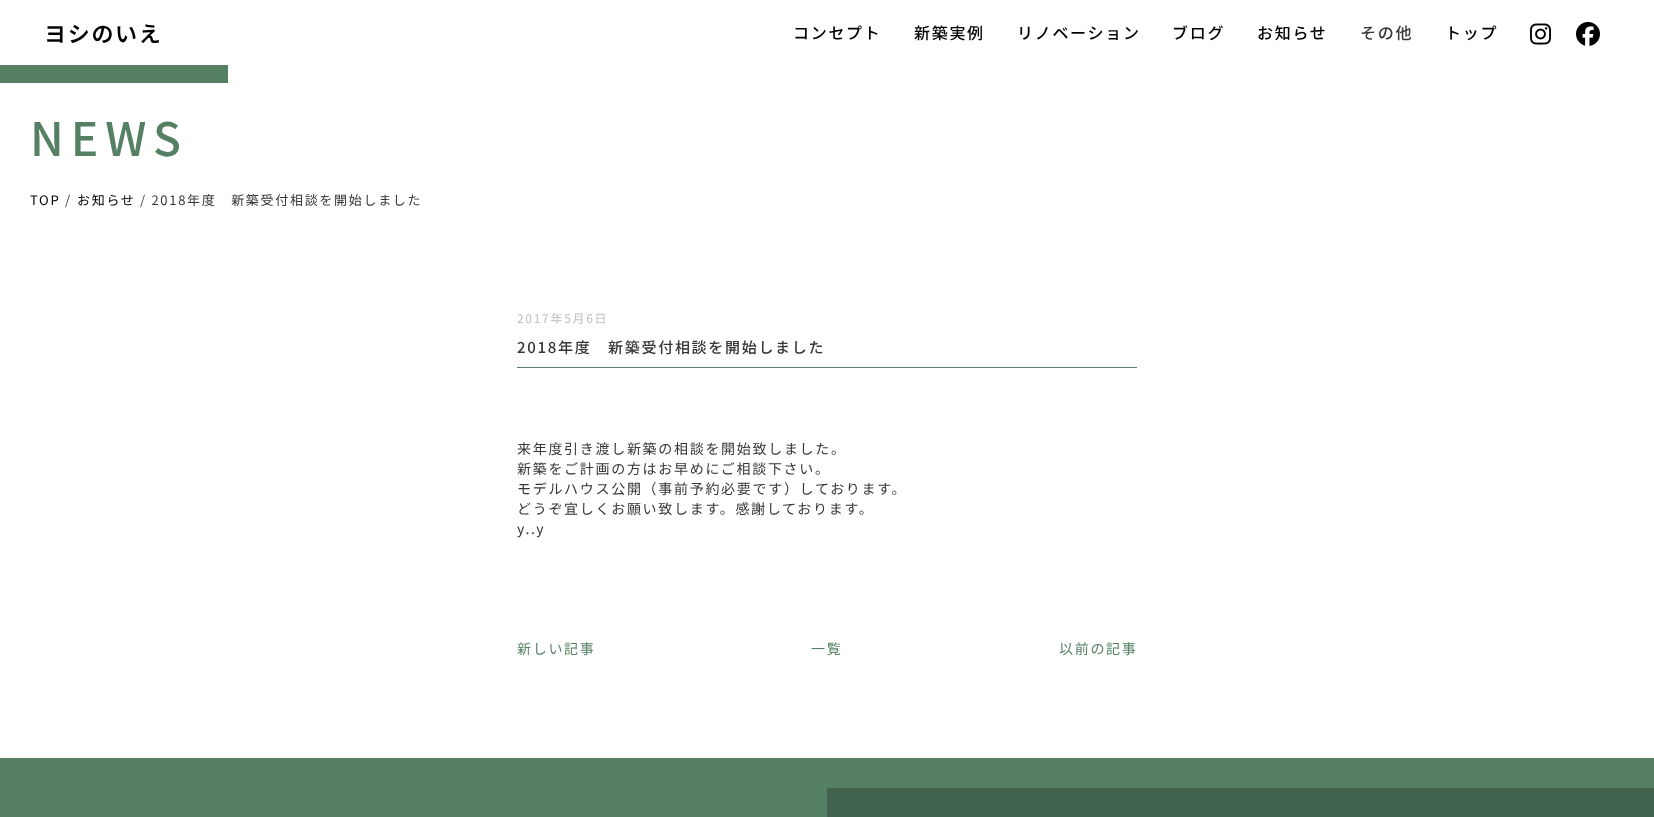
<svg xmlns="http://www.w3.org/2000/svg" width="1654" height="817">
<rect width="100%" height="100%" fill="#fff"/>
<text x="44" y="42" style="font-family:Noto Sans JP;font-size:22px;font-weight:600;letter-spacing:1.7px;fill:#000">ヨシのいえ</text>
<text x="793" y="39" style="font-family:Noto Sans JP;font-size:16px;font-weight:500;letter-spacing:1.7px;fill:#000">コンセプト</text>
<text x="914" y="39" style="font-family:Noto Sans JP;font-size:16px;font-weight:500;letter-spacing:1.7px;fill:#000">新築実例</text>
<text x="1017" y="39" style="font-family:Noto Sans JP;font-size:16px;font-weight:500;letter-spacing:1.7px;fill:#000">リノベーション</text>
<text x="1172" y="39" style="font-family:Noto Sans JP;font-size:16px;font-weight:500;letter-spacing:1.7px;fill:#000">ブログ</text>
<text x="1257" y="39" style="font-family:Noto Sans JP;font-size:16px;font-weight:500;letter-spacing:1.7px;fill:#000">お知らせ</text>
<text x="1360" y="39" style="font-family:Noto Sans JP;font-size:16px;font-weight:500;letter-spacing:1.7px;fill:#363636">その他</text>
<text x="1445" y="39" style="font-family:Noto Sans JP;font-size:16px;font-weight:500;letter-spacing:1.7px;fill:#000">トップ</text>
<image x="1530" y="23" width="21" height="22" href="media/1.png"/>
<image x="1576" y="22" width="24" height="24" href="media/2.png"/>
<rect y="65" width="228" height="18" fill="#558063"/>
<text x="30" y="156" style="font-family:Noto Sans JP;font-size:46px;font-weight:500;letter-spacing:7px;fill:#558063">NEWS</text>
<text x="30" y="205" style="font-family:Noto Sans JP;font-size:13px;letter-spacing:1.7px;fill:#000">TOP</text>
<text x="65" y="205" style="font-family:Noto Sans JP;font-size:13px;letter-spacing:1.7px;fill:#363636">/</text>
<text x="77" y="205" style="font-family:Noto Sans JP;font-size:13px;letter-spacing:1.7px;fill:#000">お知らせ</text>
<text x="140" y="205" style="font-family:Noto Sans JP;font-size:13px;letter-spacing:1.7px;fill:#363636">/ 2018年度　新築受付相談を開始しました</text>
<text x="517" y="323" style="font-family:Noto Sans JP;font-size:12px;letter-spacing:1.7px;fill:#bfbdc1">2017年5月6日</text>
<rect x="517" y="367" width="620" height="1" fill="#558063"/>
<text x="517" y="353" style="font-family:Noto Sans JP;font-size:15px;font-weight:500;letter-spacing:1.7px;fill:#363636">2018年度　新築受付相談を開始しました</text>
<text x="517" y="454" style="font-family:Noto Sans JP;font-size:14px;letter-spacing:1.7px;fill:#363636">来年度引き渡し新築の相談を開始致しました。</text>
<text x="517" y="474" style="font-family:Noto Sans JP;font-size:14px;letter-spacing:1.7px;fill:#363636">新築をご計画の方はお早めにご相談下さい。</text>
<text x="517" y="494" style="font-family:Noto Sans JP;font-size:14px;letter-spacing:1.7px;fill:#363636">モデルハウス公開（事前予約必要です）しております。</text>
<text x="517" y="514" style="font-family:Noto Sans JP;font-size:14px;letter-spacing:1.7px;fill:#363636">どうぞ宜しくお願い致します。感謝しております。</text>
<text x="517" y="534" style="font-family:Noto Sans JP;font-size:14px;letter-spacing:1.7px;fill:#363636">y..y</text>
<text x="517" y="654" style="font-family:Noto Sans JP;font-size:14px;letter-spacing:1.7px;fill:#558063">新しい記事</text>
<text x="811" y="654" style="font-family:Noto Sans JP;font-size:14px;letter-spacing:1.7px;fill:#558063">一覧</text>
<text x="1059" y="654" style="font-family:Noto Sans JP;font-size:14px;letter-spacing:1.7px;fill:#558063">以前の記事</text>
<rect y="758" width="1654" height="59" fill="#558063"/>
<rect x="827" y="788" width="827" height="29" fill="#41624c"/>
</svg>
